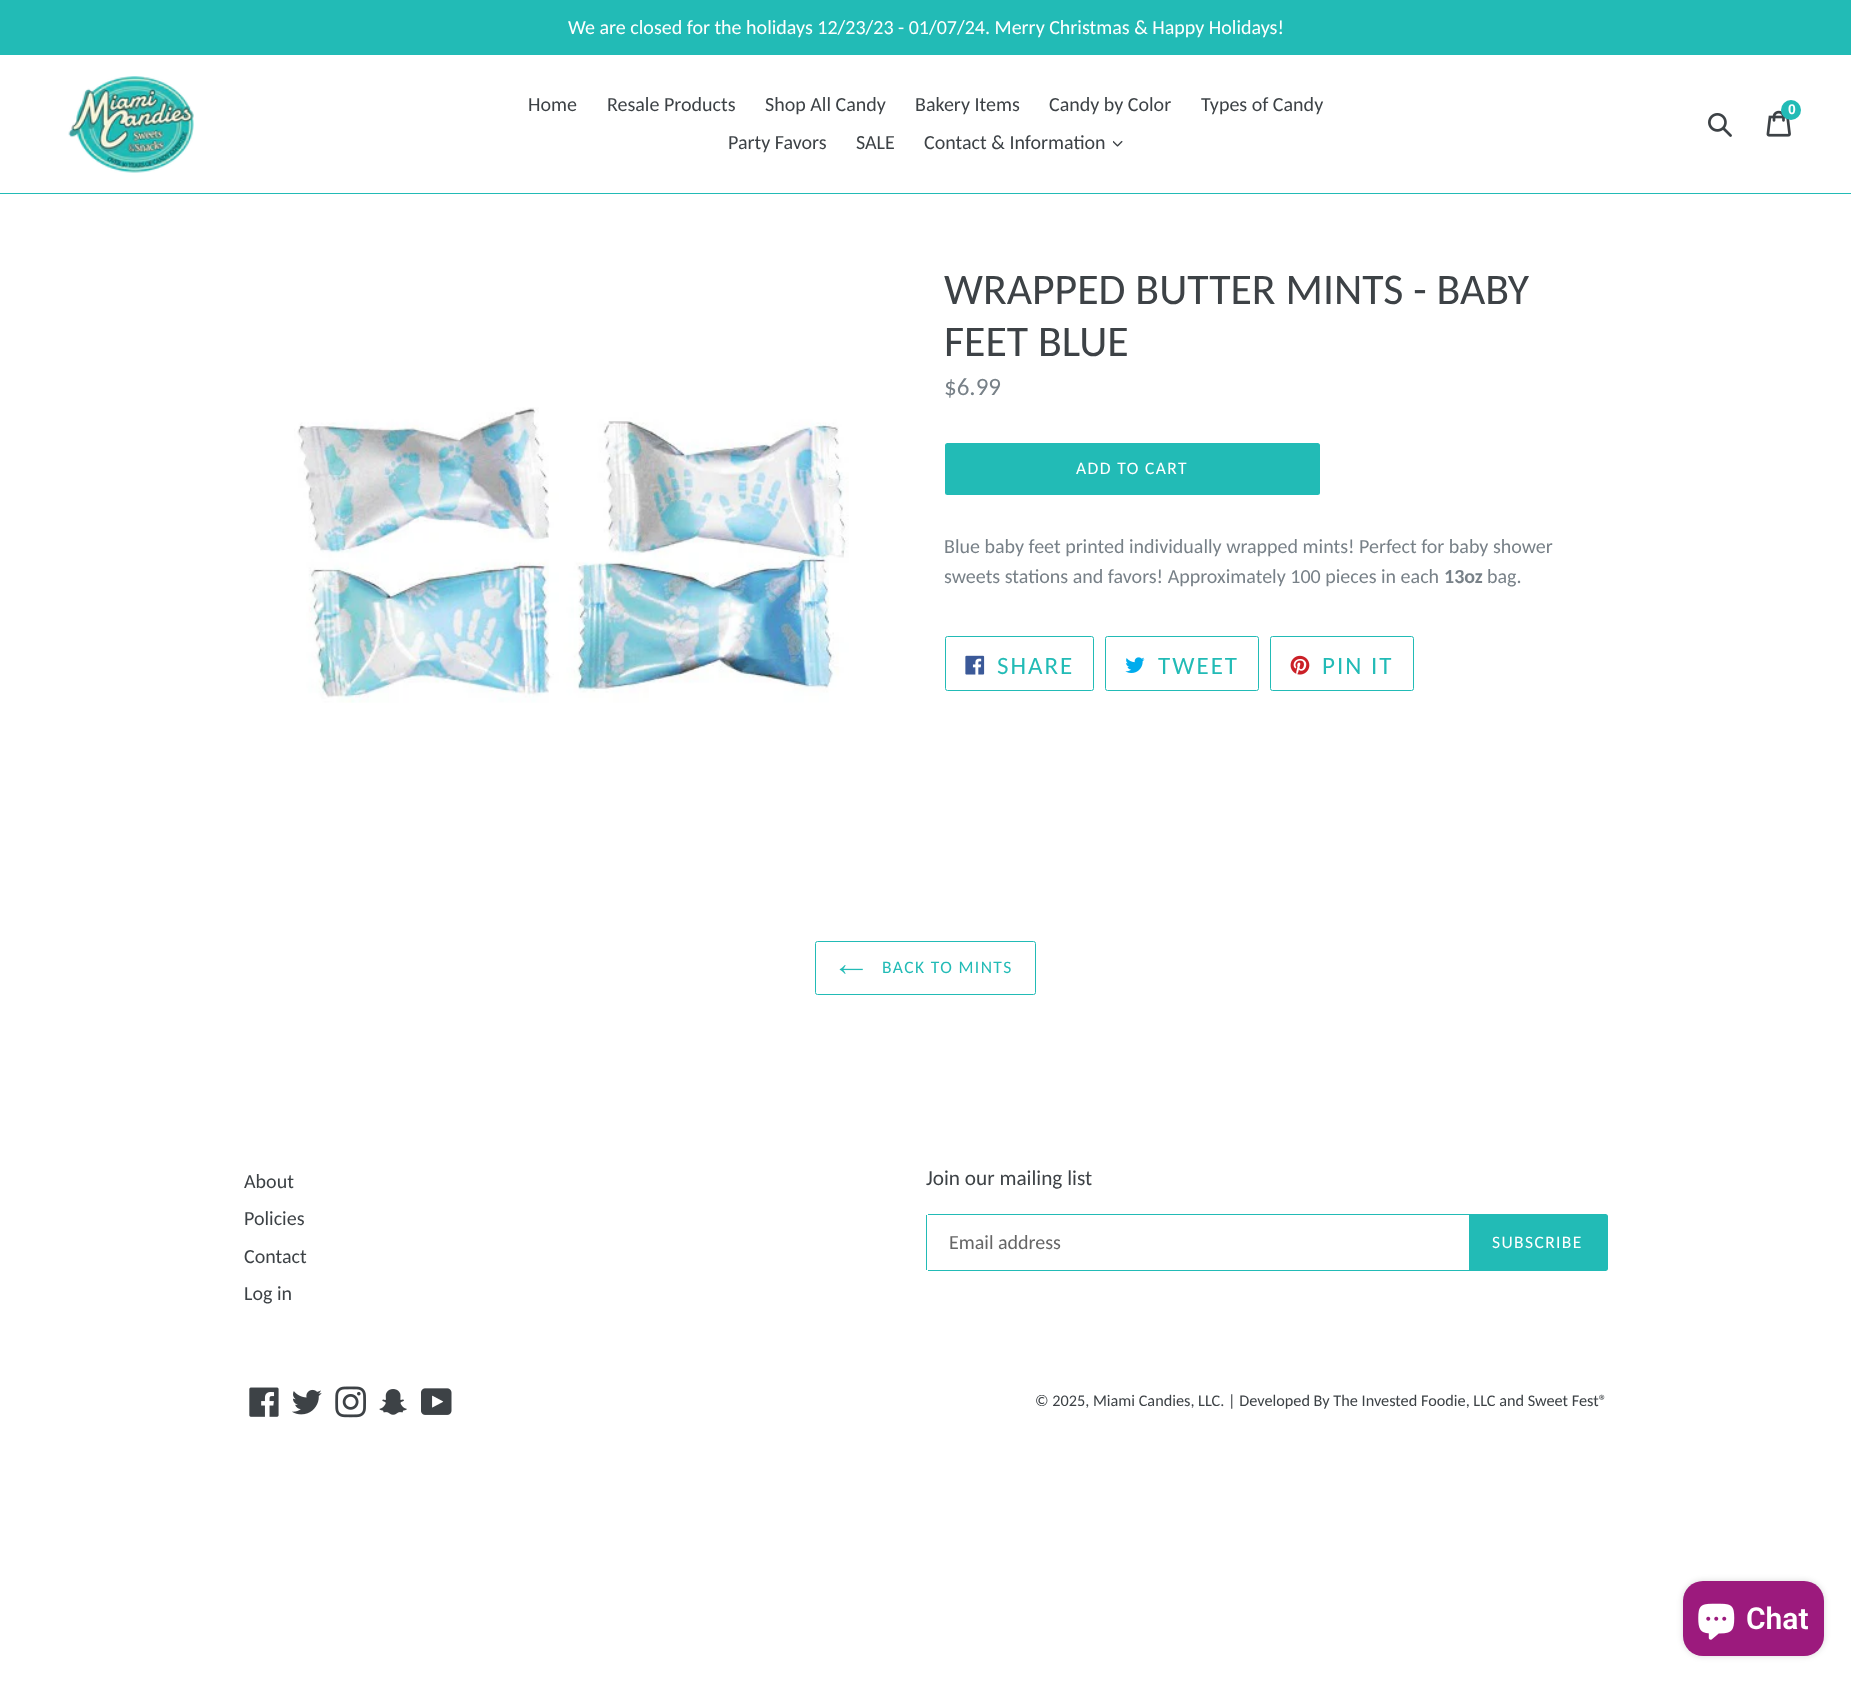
<svg xmlns="http://www.w3.org/2000/svg" width="1851" height="1682">
<rect width="100%" height="100%" fill="#fff"/>
<rect width="1851" height="55" fill="#22bbb6"/>
<text x="568" y="34" style="font-family:Carlito;font-size:20px;fill:#fff">We are closed for the holidays 12/23/23 - 01/07/24. Merry Christmas &amp; Happy Holidays!</text>
<rect y="193" width="1851" height="1" fill="#22bbb6"/>
<image x="68" y="76" width="126" height="97" href="media/1.png"/>
<text x="528" y="111" style="font-family:Carlito;font-size:20px;fill:#3d4246">Home</text>
<text x="607" y="111" style="font-family:Carlito;font-size:20px;fill:#3d4246">Resale Products</text>
<text x="765" y="111" style="font-family:Carlito;font-size:20px;fill:#3d4246">Shop All Candy</text>
<text x="915" y="111" style="font-family:Carlito;font-size:20px;fill:#3d4246">Bakery Items</text>
<text x="1049" y="111" style="font-family:Carlito;font-size:20px;fill:#3d4246">Candy by Color</text>
<text x="1201" y="111" style="font-family:Carlito;font-size:20px;fill:#3d4246">Types of Candy</text>
<text x="728" y="149" style="font-family:Carlito;font-size:20px;fill:#3d4246">Party Favors</text>
<text x="856" y="149" style="font-family:Carlito;font-size:20px;fill:#3d4246">SALE</text>
<text x="924" y="149" style="font-family:Carlito;font-size:20px;fill:#3d4246">Contact &amp; Information</text>
<image x="1113" y="140" width="10" height="7" href="media/2.png"/>
<image x="1766" y="110" width="25" height="27" href="media/3.png"/>
<circle cx="1791" cy="110" r="10" fill="#22bbb6"/>
<text x="1788" y="114" style="font-family:Liberation Sans;font-size:14px;font-weight:bold;fill:#fff">0</text>
<image x="1708" y="113" width="24" height="24" href="media/4.png"/>
<image x="294" y="407" width="555" height="296" href="media/5.png"/>
<text x="944" y="304" style="font-family:Carlito;font-size:43.75px;fill:#3d4246">WRAPPED BUTTER MINTS - BABY</text>
<text x="944" y="356" style="font-family:Carlito;font-size:43.75px;fill:#3d4246">FEET BLUE</text>
<text x="944" y="395" style="font-family:Carlito;font-size:25px;fill:#788188">$6.99</text>
<rect x="945" y="443" width="375" height="52" rx="2.5" fill="#22bbb6"/>
<text x="1076" y="474" style="font-family:Carlito;font-size:17.5px;letter-spacing:1.4px;fill:#fff">ADD TO CART</text>
<text x="944" y="553" style="font-family:Carlito;font-size:20px;fill:#788188">Blue baby feet printed individually wrapped mints! Perfect for baby shower</text>
<text x="944" y="583" style="font-family:Carlito;font-size:20px;fill:#788188">sweets stations and favors! Approximately 100 pieces in each</text>
<text x="1444" y="583" style="font-family:Carlito;font-size:20px;font-weight:bold;fill:#788188">13oz</text>
<text x="1487" y="583" style="font-family:Carlito;font-size:20px;fill:#788188">bag.</text>
<rect x="945.5" y="636.5" width="148" height="54" rx="2" fill="none" stroke="#22bbb6"/>
<image x="965" y="655" width="20" height="20" href="media/6.png"/>
<text x="997" y="674" style="font-family:Carlito;font-size:25px;letter-spacing:2px;fill:#22bbb6">SHARE</text>
<rect x="1105.5" y="636.5" width="153" height="54" rx="2" fill="none" stroke="#22bbb6"/>
<image x="1125" y="657" width="20" height="16" href="media/7.png"/>
<text x="1158" y="674" style="font-family:Carlito;font-size:25px;letter-spacing:2px;fill:#22bbb6">TWEET</text>
<rect x="1270.5" y="636.5" width="143" height="54" rx="2" fill="none" stroke="#22bbb6"/>
<image x="1290" y="655" width="20" height="20" href="media/8.png"/>
<text x="1322" y="674" style="font-family:Carlito;font-size:25px;letter-spacing:2px;fill:#22bbb6">PIN IT</text>
<rect x="815.5" y="941.5" width="220" height="53" rx="2" fill="none" stroke="#22bbb6"/>
<image x="839" y="965" width="24" height="9" href="media/9.png"/>
<text x="882" y="973" style="font-family:Carlito;font-size:17.5px;letter-spacing:1.4px;fill:#22bbb6">BACK TO MINTS</text>
<text x="244" y="1188" style="font-family:Carlito;font-size:20px;fill:#3d4246">About</text>
<text x="244" y="1225" style="font-family:Carlito;font-size:20px;fill:#3d4246">Policies</text>
<text x="244" y="1263" style="font-family:Carlito;font-size:20px;fill:#3d4246">Contact</text>
<text x="244" y="1300" style="font-family:Carlito;font-size:20px;fill:#3d4246">Log in</text>
<text x="926" y="1185" style="font-family:Carlito;font-size:21.25px;fill:#3d4246">Join our mailing list</text>
<rect x="928" y="1214" width="541" height="1" fill="#22bbb6"/>
<rect x="928" y="1270" width="541" height="1" fill="#22bbb6"/>
<rect x="926" y="1215" width="1" height="55" fill="#22bbb6"/>
<text x="949" y="1249" style="font-family:Carlito;font-size:20px;fill:#666">Email address</text>
<path d="M1469 1214h136.5c1.5 0 2.5 1 2.5 2.5v52c0 1.5-1 2.5-2.5 2.5h-136.5z" fill="#22bbb6"/>
<text x="1492" y="1248" style="font-family:Carlito;font-size:17.5px;letter-spacing:1.4px;fill:#fff">SUBSCRIBE</text>
<image x="249" y="1387" width="30" height="30" href="media/10.png"/>
<image x="292" y="1389" width="30" height="26" href="media/11.png"/>
<image x="335" y="1386" width="31" height="32" href="media/12.png"/>
<image x="379" y="1389" width="28" height="26" href="media/13.png"/>
<image x="421" y="1388" width="31" height="27" href="media/14.png"/>
<text x="1035" y="1406" style="font-family:Carlito;font-size:16.25px;fill:#3d4246">© 2025, Miami Candies, LLC. | Developed By The Invested Foodie, LLC and Sweet Fest®</text>
<rect x="1683" y="1581" width="141" height="75" rx="20" fill="#00000026" filter="blur(3px)"/>
<rect x="1683" y="1581" width="141" height="75" rx="20" fill="#9c1a7d"/>
<image x="1698" y="1603" width="37" height="37" href="media/15.png"/>
<text x="1746" y="1629" style="font-family:Roboto;font-size:30px;font-weight:600;fill:#fff">Chat</text>
</svg>
